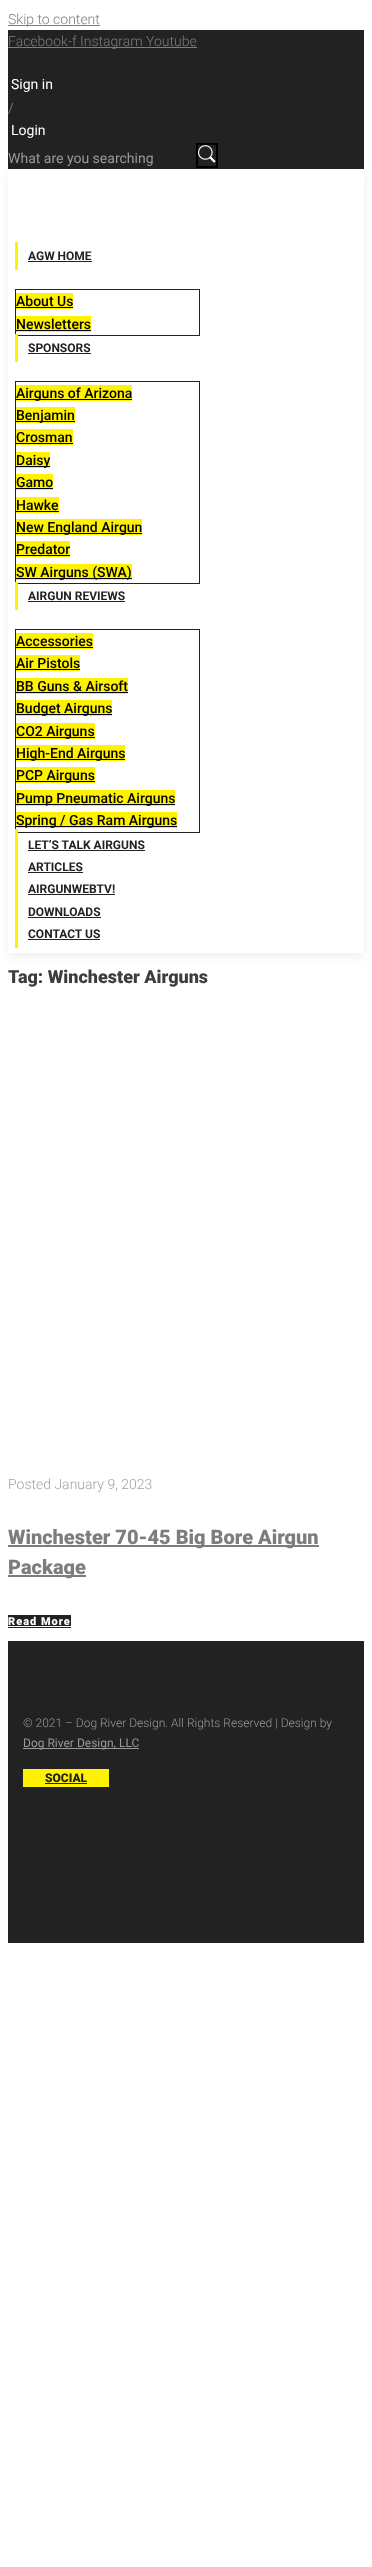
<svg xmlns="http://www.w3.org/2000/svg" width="372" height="2567">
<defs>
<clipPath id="clip1"><path d="M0 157h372v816h-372zm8 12h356v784h-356z" clip-rule="evenodd"/></clipPath>
</defs>
<rect width="100%" height="100%" fill="#fff"/>
<rect x="8" y="25" width="92" height="1" fill="#7d7d7d"/>
<text x="8" y="24" style="font-family:Roboto;font-size:14px;font-weight:300;fill:#7d7d7d">Skip to content</text>
<rect x="8" y="30" width="356" height="139" fill="#222"/>
<rect x="8" y="47" width="189" height="1" fill="#7d7d7d"/>
<text x="8" y="46" style="font-family:Roboto;font-size:14px;font-weight:300;fill:#7d7d7d">Facebook-f Instagram Youtube</text>
<text x="11" y="89" style="font-family:Roboto;font-size:14px;fill:#fff">Sign in</text>
<text x="8" y="113" style="font-family:Roboto;font-size:14px;font-weight:300;fill:#999">/</text>
<text x="11" y="135" style="font-family:Roboto;font-size:14px;fill:#fff">Login</text>
<g clip-path="url(#clip1)">
<rect x="8" y="173" width="356" height="784" fill="#22222212" filter="blur(5px)"/>
</g>
<text x="8" y="163" style="font-family:Roboto;font-size:14px;fill:#999">What are you searching</text>
<rect x="197" y="144" width="20" height="23" fill="none" stroke="#000" stroke-width="2"/>
<image x="198" y="145" width="18" height="18" href="media/1.png"/>
<text x="28" y="260" style="font-family:Roboto;font-size:12px;font-weight:bold;fill:#222">AGW HOME</text>
<rect x="15" y="242" width="3" height="28" fill="#fff200"/>
<rect x="28" y="261" width="64" height="1" fill="#222"/>
<rect x="15.5" y="289.5" width="184" height="46" fill="none" stroke="#222"/>
<rect x="16" y="293" width="57" height="16" fill="#fff200"/>
<text x="16" y="306" style="font-family:Roboto;font-size:14px;font-weight:500;fill:#000">About Us</text>
<rect x="16" y="307" width="57" height="1" fill="#000"/>
<rect x="16" y="316" width="75" height="16" fill="#fff200"/>
<text x="16" y="329" style="font-family:Roboto;font-size:14px;font-weight:500;fill:#000">Newsletters</text>
<rect x="16" y="330" width="75" height="1" fill="#000"/>
<text x="28" y="352" style="font-family:Roboto;font-size:12px;font-weight:bold;fill:#222">SPONSORS</text>
<rect x="15" y="334" width="3" height="28" fill="#fff200"/>
<rect x="28" y="353" width="63" height="1" fill="#222"/>
<rect x="15.5" y="381.5" width="184" height="202" fill="none" stroke="#222"/>
<rect x="16" y="385" width="116" height="16" fill="#fff200"/>
<rect x="16" y="399" width="116" height="1" fill="#000"/>
<text x="16" y="398" style="font-family:Roboto;font-size:14px;font-weight:500;fill:#000">Airguns of Arizona</text>
<rect x="16" y="407" width="59" height="16" fill="#fff200"/>
<rect x="16" y="421" width="59" height="1" fill="#000"/>
<text x="16" y="420" style="font-family:Roboto;font-size:14px;font-weight:500;fill:#000">Benjamin</text>
<rect x="16" y="429" width="57" height="16" fill="#fff200"/>
<text x="16" y="442" style="font-family:Roboto;font-size:14px;font-weight:500;fill:#000">Crosman</text>
<rect x="16" y="443" width="57" height="1" fill="#000"/>
<rect x="16" y="452" width="34" height="16" fill="#fff200"/>
<rect x="16" y="466" width="34" height="1" fill="#000"/>
<text x="16" y="465" style="font-family:Roboto;font-size:14px;font-weight:500;fill:#000">Daisy</text>
<rect x="16" y="474" width="37" height="16" fill="#fff200"/>
<text x="16" y="487" style="font-family:Roboto;font-size:14px;font-weight:500;fill:#000">Gamo</text>
<rect x="16" y="488" width="37" height="1" fill="#000"/>
<rect x="16" y="497" width="43" height="16" fill="#fff200"/>
<text x="16" y="510" style="font-family:Roboto;font-size:14px;font-weight:500;fill:#000">Hawke</text>
<rect x="16" y="511" width="43" height="1" fill="#000"/>
<rect x="16" y="519" width="126" height="16" fill="#fff200"/>
<rect x="16" y="533" width="126" height="1" fill="#000"/>
<text x="16" y="532" style="font-family:Roboto;font-size:14px;font-weight:500;fill:#000">New England Airgun</text>
<rect x="16" y="541" width="54" height="16" fill="#fff200"/>
<text x="16" y="554" style="font-family:Roboto;font-size:14px;font-weight:500;fill:#000">Predator</text>
<rect x="16" y="555" width="54" height="1" fill="#000"/>
<rect x="16" y="564" width="116" height="16" fill="#fff200"/>
<rect x="16" y="578" width="116" height="1" fill="#000"/>
<text x="16" y="577" style="font-family:Roboto;font-size:14px;font-weight:500;fill:#000">SW Airguns (SWA)</text>
<text x="28" y="600" style="font-family:Roboto;font-size:12px;font-weight:bold;fill:#222">AIRGUN REVIEWS</text>
<rect x="15" y="582" width="3" height="28" fill="#fff200"/>
<rect x="28" y="601" width="97" height="1" fill="#222"/>
<rect x="15.5" y="629.5" width="184" height="203" fill="none" stroke="#222"/>
<rect x="16" y="633" width="77" height="16" fill="#fff200"/>
<text x="16" y="646" style="font-family:Roboto;font-size:14px;font-weight:500;fill:#000">Accessories</text>
<rect x="16" y="647" width="77" height="1" fill="#000"/>
<rect x="16" y="655" width="64" height="16" fill="#fff200"/>
<text x="16" y="668" style="font-family:Roboto;font-size:14px;font-weight:500;fill:#000">Air Pistols</text>
<rect x="16" y="669" width="64" height="1" fill="#000"/>
<rect x="16" y="678" width="112" height="16" fill="#fff200"/>
<text x="16" y="691" style="font-family:Roboto;font-size:14px;font-weight:500;fill:#000">BB Guns &amp; Airsoft</text>
<rect x="16" y="692" width="112" height="1" fill="#000"/>
<rect x="16" y="700" width="96" height="16" fill="#fff200"/>
<rect x="16" y="714" width="96" height="1" fill="#000"/>
<text x="16" y="713" style="font-family:Roboto;font-size:14px;font-weight:500;fill:#000">Budget Airguns</text>
<rect x="16" y="723" width="79" height="16" fill="#fff200"/>
<rect x="16" y="737" width="79" height="1" fill="#000"/>
<text x="16" y="736" style="font-family:Roboto;font-size:14px;font-weight:500;fill:#000">CO2 Airguns</text>
<rect x="16" y="745" width="109" height="16" fill="#fff200"/>
<rect x="16" y="759" width="109" height="1" fill="#000"/>
<text x="16" y="758" style="font-family:Roboto;font-size:14px;font-weight:500;fill:#000">High-End Airguns</text>
<rect x="16" y="767" width="79" height="16" fill="#fff200"/>
<rect x="16" y="781" width="79" height="1" fill="#000"/>
<text x="16" y="780" style="font-family:Roboto;font-size:14px;font-weight:500;fill:#000">PCP Airguns</text>
<rect x="16" y="790" width="159" height="16" fill="#fff200"/>
<rect x="16" y="804" width="159" height="1" fill="#000"/>
<text x="16" y="803" style="font-family:Roboto;font-size:14px;font-weight:500;fill:#000">Pump Pneumatic Airguns</text>
<rect x="16" y="812" width="161" height="16" fill="#fff200"/>
<rect x="16" y="826" width="161" height="1" fill="#000"/>
<text x="16" y="825" style="font-family:Roboto;font-size:14px;font-weight:500;fill:#000">Spring / Gas Ram Airguns</text>
<text x="28" y="849" style="font-family:Roboto;font-size:12px;font-weight:bold;fill:#222">LET’S TALK AIRGUNS</text>
<rect x="15" y="829" width="3" height="119" fill="#fff200"/>
<rect x="28" y="850" width="117" height="1" fill="#222"/>
<text x="28" y="871" style="font-family:Roboto;font-size:12px;font-weight:bold;fill:#222">ARTICLES</text>
<rect x="28" y="872" width="55" height="1" fill="#222"/>
<text x="28" y="893" style="font-family:Roboto;font-size:12px;font-weight:bold;fill:#222">AIRGUNWEBTV!</text>
<rect x="28" y="894" width="87" height="1" fill="#222"/>
<text x="28" y="916" style="font-family:Roboto;font-size:12px;font-weight:bold;fill:#222">DOWNLOADS</text>
<rect x="28" y="917" width="73" height="1" fill="#222"/>
<text x="28" y="938" style="font-family:Roboto;font-size:12px;font-weight:bold;fill:#222">CONTACT US</text>
<rect x="28" y="939" width="72" height="1" fill="#222"/>
<text x="8" y="983" style="font-family:Roboto;font-size:18px;font-weight:900;fill:#3b3d42">Tag: Winchester Airguns</text>
<text x="8" y="1489" style="font-family:Roboto;font-size:14px;font-weight:300;fill:#a1a2a4">Posted January 9, 2023</text>
<rect x="8" y="1545" width="311" height="2" fill="#7d7d7d"/>
<text x="8" y="1544" style="font-family:Roboto;font-size:20px;font-weight:900;fill:#7d7d7d">Winchester 70-45 Big Bore Airgun</text>
<rect x="8" y="1575" width="78" height="2" fill="#7d7d7d"/>
<text x="8" y="1574" style="font-family:Roboto;font-size:20px;font-weight:900;fill:#7d7d7d">Package</text>
<rect x="8" y="1615" width="63" height="13" fill="#222"/>
<text x="8" y="1625" style="font-family:Roboto;font-size:11px;font-weight:900;letter-spacing:1px;fill:#fff">Read More</text>
<rect x="8" y="1626" width="63" height="1" fill="#fff"/>
<rect x="8" y="1641" width="356" height="302" fill="#222"/>
<text x="23" y="1727" style="font-family:Roboto;font-size:12px;font-weight:300;fill:#999">© 2021 – Dog River Design. All Rights Reserved | Design by</text>
<rect x="23" y="1748" width="116" height="1" fill="#999"/>
<text x="23" y="1747" style="font-family:Roboto;font-size:12px;fill:#999">Dog River Design, LLC</text>
<rect x="23" y="1769" width="86" height="18" fill="#fff200"/>
<text x="45" y="1782" style="font-family:Roboto;font-size:12px;font-weight:900;fill:#222">SOCIAL</text>
<rect x="45" y="1783" width="42" height="1" fill="#222"/>
</svg>
